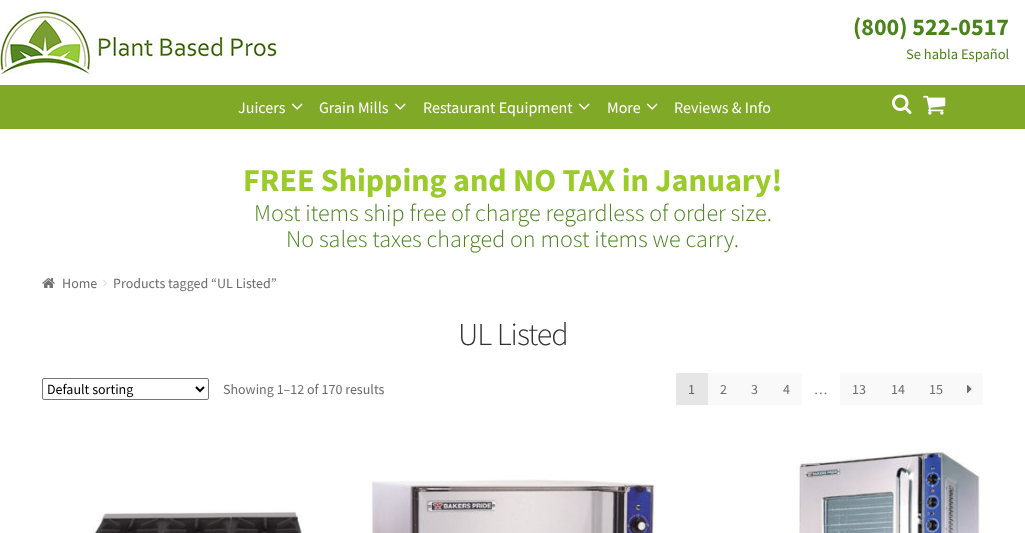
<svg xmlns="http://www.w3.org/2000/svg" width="1025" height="533">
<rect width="100%" height="100%" fill="#fff"/>
<text x="853" y="35" style="font-family:Source Sans Pro;font-size:24px;font-weight:bold;fill:#4a831c">(800) 522-0517</text>
<text x="906" y="59" style="font-family:Source Sans Pro;font-size:14.5px;fill:#4a831c">Se habla Español</text>
<rect y="85" width="1025" height="44" fill="#80a927"/>
<image x="0" y="10" width="277" height="65" href="media/1.png"/>
<text x="238" y="113" style="font-family:Source Sans Pro;font-size:16px;fill:#fff">Juicers</text>
<image x="291" y="103" width="12" height="7" href="media/2.png"/>
<text x="319" y="113" style="font-family:Source Sans Pro;font-size:16px;fill:#fff">Grain Mills</text>
<image x="394" y="103" width="12" height="7" href="media/2.png"/>
<text x="423" y="113" style="font-family:Source Sans Pro;font-size:16px;fill:#fff">Restaurant Equipment</text>
<image x="578" y="103" width="12" height="7" href="media/2.png"/>
<text x="607" y="113" style="font-family:Source Sans Pro;font-size:16px;fill:#fff">More</text>
<image x="646" y="103" width="12" height="7" href="media/2.png"/>
<text x="674" y="113" style="font-family:Source Sans Pro;font-size:16px;fill:#fff">Reviews &amp; Info</text>
<image x="892" y="94" width="20" height="20" href="media/3.png"/>
<image x="923" y="95" width="23" height="20" href="media/4.png"/>
<text x="243" y="191" style="font-family:Source Sans Pro;font-size:32px;font-weight:bold;fill:#9bcb2a">FREE Shipping and NO TAX in January!</text>
<text x="254" y="221" style="font-family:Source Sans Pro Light;font-size:24px;font-weight:300;fill:#4a831c">Most items ship free of charge regardless of order size.</text>
<text x="286" y="247" style="font-family:Source Sans Pro Light;font-size:24px;font-weight:300;fill:#4a831c">No sales taxes charged on most items we carry.</text>
<image x="42" y="278" width="13" height="10" href="media/5.png"/>
<text x="62" y="288" style="font-family:Source Sans Pro;font-size:14px;fill:#6d6d6d">Home</text>
<image x="103" y="279" width="4" height="8" href="media/6.png"/>
<text x="113" y="288" style="font-family:Source Sans Pro;font-size:14px;fill:#6d6d6d">Products tagged “UL Listed”</text>
<text x="458" y="345" style="font-family:Source Sans Pro Light;font-size:32px;font-weight:300;letter-spacing:-1px;fill:#333">UL Listed</text>
<rect x="42.5" y="378.5" width="166" height="21" rx="1.5" fill="none" stroke="#767676"/>
<path d="M196 387l4 4l4-4" fill="none" stroke="#000" stroke-width="2"/>
<text x="47" y="394" style="font-family:Source Sans Pro;font-size:14px;fill:#000">Default sorting</text>
<text x="223" y="394" style="font-family:Source Sans Pro;font-size:14px;fill:#6d6d6d">Showing 1–12 of 170 results</text>
<rect x="676" y="373" width="32" height="32" fill="#e6e6e6"/>
<text x="688" y="394" style="font-family:Source Sans Pro;font-size:14px;fill:#636363">1</text>
<rect x="708" y="373" width="94" height="32" fill="#f9f9f9"/>
<text x="720" y="394" style="font-family:Source Sans Pro;font-size:14px;fill:#6d6d6d">2</text>
<text x="751" y="394" style="font-family:Source Sans Pro;font-size:14px;fill:#6d6d6d">3</text>
<text x="783" y="394" style="font-family:Source Sans Pro;font-size:14px;fill:#6d6d6d">4</text>
<rect x="840" y="373" width="143" height="32" fill="#f9f9f9"/>
<text x="852" y="394" style="font-family:Source Sans Pro;font-size:14px;fill:#6d6d6d">13</text>
<text x="891" y="394" style="font-family:Source Sans Pro;font-size:14px;fill:#6d6d6d">14</text>
<text x="929" y="394" style="font-family:Source Sans Pro;font-size:14px;fill:#6d6d6d">15</text>
<image x="967" y="385" width="5" height="8" href="media/7.png"/>
<text x="814" y="394" style="font-family:Source Sans Pro;font-size:14px;fill:#6d6d6d">…</text>
<image x="93" y="509" width="209" height="24" href="media/8.png"/>
<image x="369" y="479" width="287" height="54" href="media/9.png"/>
<image x="796" y="449" width="184" height="84" href="media/10.png"/>
</svg>
